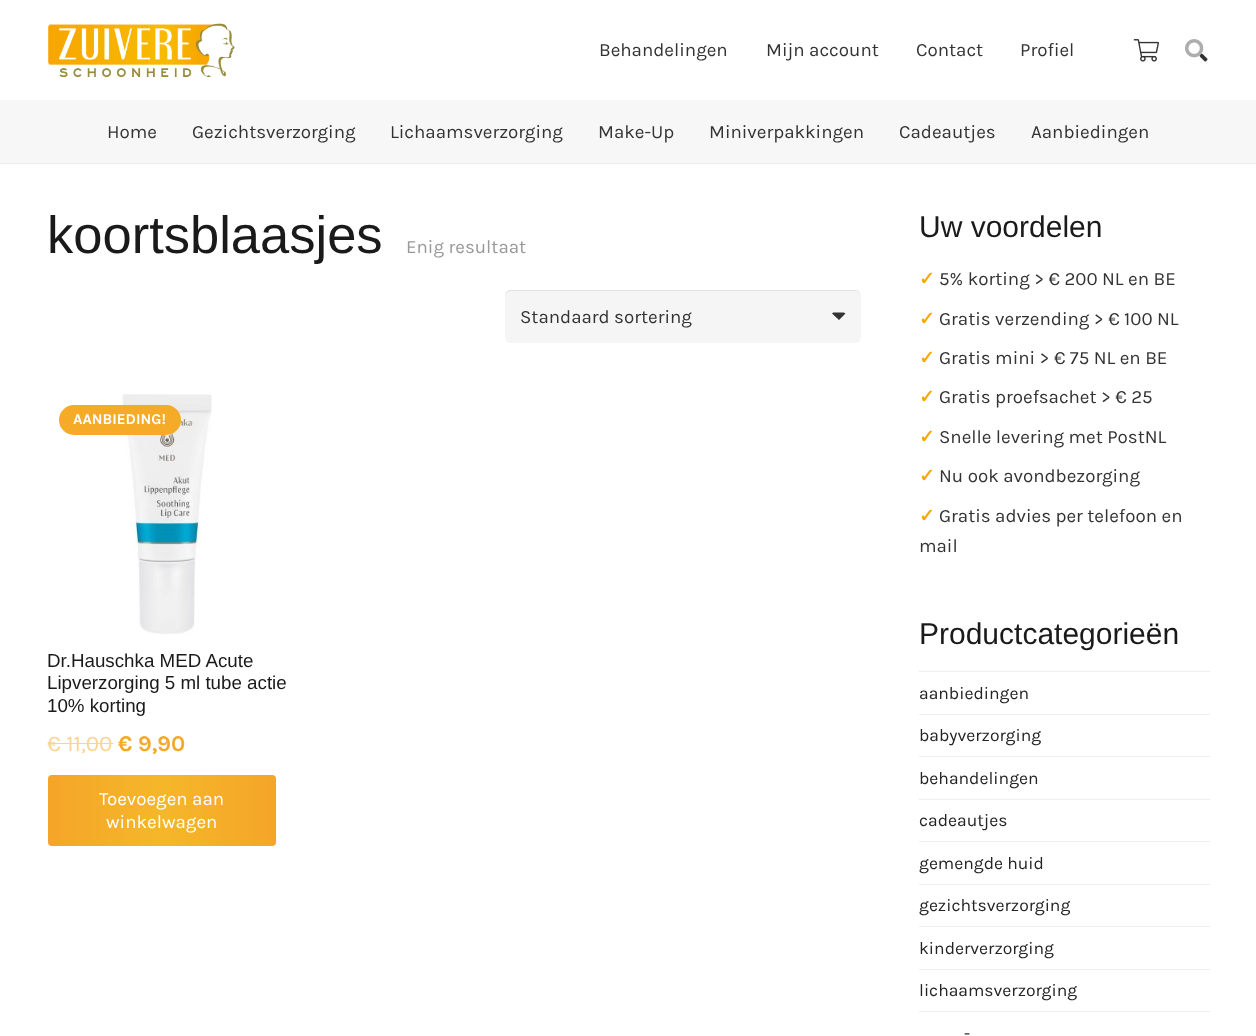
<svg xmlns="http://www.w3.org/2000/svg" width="1256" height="1036">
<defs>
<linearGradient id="g1" gradientUnits="userSpaceOnUse" x1="48" y1="811" x2="276" y2="811"><stop offset="0" stop-color="#f5a528"/><stop offset="0.5" stop-color="#f5b72a"/><stop offset="1" stop-color="#f5a528"/></linearGradient>
</defs>
<rect width="100%" height="100%" fill="#fff"/>
<image x="48" y="23" width="187" height="55" href="media/1.png"/>
<text x="599" y="56" style="font-family:Karla;font-size:18.75px;fill:#333">Behandelingen</text>
<text x="766" y="56" style="font-family:Karla;font-size:18.75px;fill:#333">Mijn account</text>
<text x="916" y="56" style="font-family:Karla;font-size:18.75px;fill:#333">Contact</text>
<text x="1020" y="56" style="font-family:Karla;font-size:18.75px;fill:#333">Profiel</text>
<image x="1133" y="39" width="26" height="23" href="media/2.png"/>
<image x="1199" y="53" width="9" height="9" href="media/4.png"/>
<image x="1185" y="39" width="19" height="19" href="media/3.png"/>
<rect y="163" width="1256" height="1" fill="#ebebeb"/>
<rect y="100" width="1256" height="63" fill="#f7f7f7"/>
<text x="107" y="138" style="font-family:Karla;font-size:18.75px;fill:#333">Home</text>
<text x="192" y="138" style="font-family:Karla;font-size:18.75px;fill:#333">Gezichtsverzorging</text>
<text x="390" y="138" style="font-family:Karla;font-size:18.75px;fill:#333">Lichaamsverzorging</text>
<text x="598" y="138" style="font-family:Karla;font-size:18.75px;fill:#333">Make-Up</text>
<text x="709" y="138" style="font-family:Karla;font-size:18.75px;fill:#333">Miniverpakkingen</text>
<text x="899" y="138" style="font-family:Karla;font-size:18.75px;fill:#333">Cadeautjes</text>
<text x="1031" y="138" style="font-family:Karla;font-size:18.75px;fill:#333">Aanbiedingen</text>
<text x="47" y="253" style="font-family:Liberation Sans;font-size:52.5px;fill:#1a1a1a">koortsblaasjes</text>
<text x="406" y="253" style="font-family:Karla;font-size:18.75px;fill:#999">Enig resultaat</text>
<rect x="505" y="290" width="356" height="53" rx="6" fill="#f5f5f5"/>
<path d="M511 291h345c3 0 5 3 5 6c0-4-2-7-6-7h-344c-4 0-6 3-6 7c0-3 3-6 6-6z" fill="#e1e1e1"/>
<text x="520" y="323" style="font-family:Karla;font-size:18.75px;fill:#333">Standaard sortering</text>
<path d="M834 312.5c-1 0-1.5 .5-2 1l7 6.5l6.5-6.5c-.5-.5-1.5-1-3.5-1z" fill="#333"/>
<image x="122" y="394" width="90" height="240" href="media/5.png"/>
<rect x="59" y="405" width="122" height="30" rx="15" fill="#f5aa28"/>
<text x="73" y="424" style="font-family:Karla;font-size:15px;font-weight:bold;fill:#fff">AANBIEDING!</text>
<text x="47" y="667" style="font-family:Liberation Sans;font-size:18.75px;fill:#1a1a1a">Dr.Hauschka MED Acute</text>
<text x="47" y="689" style="font-family:Liberation Sans;font-size:18.75px;fill:#1a1a1a">Lipverzorging 5 ml tube actie</text>
<text x="47" y="712" style="font-family:Liberation Sans;font-size:18.75px;fill:#1a1a1a">10% korting</text>
<text x="47" y="751" style="font-family:Karla;font-size:22.5px;fill:#fad494">€ 11,00</text>
<rect x="48" y="743" width="65" height="1" fill="#fad494"/>
<text x="118" y="751" style="font-family:Karla;font-size:22.5px;font-weight:bold;fill:#f5a929">€ 9,90</text>
<rect x="48" y="775" width="228" height="71" rx="4" fill="url(#g1)"/>
<text x="99" y="805" style="font-family:Karla;font-size:18.75px;fill:#fff">Toevoegen aan</text>
<text x="106" y="828" style="font-family:Karla;font-size:18.75px;fill:#fff">winkelwagen</text>
<text x="919" y="237" style="font-family:Liberation Sans;font-size:30px;fill:#1a1a1a">Uw voordelen</text>
<text x="919" y="285" style="font-family:DejaVu Sans;font-size:18.75px;font-weight:bold;fill:#f7a700">✓</text>
<text x="939" y="285" style="font-family:Karla;font-size:18.75px;fill:#333">5% korting &gt; € 200 NL en BE</text>
<text x="919" y="325" style="font-family:DejaVu Sans;font-size:18.75px;font-weight:bold;fill:#f7a700">✓</text>
<text x="939" y="325" style="font-family:Karla;font-size:18.75px;fill:#333">Gratis verzending &gt; € 100 NL</text>
<text x="919" y="364" style="font-family:DejaVu Sans;font-size:18.75px;font-weight:bold;fill:#f7a700">✓</text>
<text x="939" y="364" style="font-family:Karla;font-size:18.75px;fill:#333">Gratis mini &gt; € 75 NL en BE</text>
<text x="919" y="403" style="font-family:DejaVu Sans;font-size:18.75px;font-weight:bold;fill:#f7a700">✓</text>
<text x="939" y="403" style="font-family:Karla;font-size:18.75px;fill:#333">Gratis proefsachet &gt; € 25</text>
<text x="919" y="443" style="font-family:DejaVu Sans;font-size:18.75px;font-weight:bold;fill:#f7a700">✓</text>
<text x="939" y="443" style="font-family:Karla;font-size:18.75px;fill:#333">Snelle levering met PostNL</text>
<text x="919" y="482" style="font-family:DejaVu Sans;font-size:18.75px;font-weight:bold;fill:#f7a700">✓</text>
<text x="939" y="482" style="font-family:Karla;font-size:18.75px;fill:#333">Nu ook avondbezorging</text>
<text x="919" y="522" style="font-family:DejaVu Sans;font-size:18.75px;font-weight:bold;fill:#f7a700">✓</text>
<text x="939" y="522" style="font-family:Karla;font-size:18.75px;fill:#333">Gratis advies per telefoon en</text>
<text x="919" y="552" style="font-family:Karla;font-size:18.75px;fill:#333">mail</text>
<text x="919" y="644" style="font-family:Liberation Sans;font-size:30px;fill:#1a1a1a">Productcategorieën</text>
<rect x="919" y="671" width="291" height="1" fill="#eee"/>
<text x="919" y="699" style="font-family:Karla;font-size:17.5px;fill:#232323">aanbiedingen</text>
<rect x="919" y="714" width="291" height="1" fill="#eee"/>
<text x="919" y="741" style="font-family:Karla;font-size:17.5px;fill:#232323">babyverzorging</text>
<rect x="919" y="756" width="291" height="1" fill="#eee"/>
<text x="919" y="784" style="font-family:Karla;font-size:17.5px;fill:#232323">behandelingen</text>
<rect x="919" y="799" width="291" height="1" fill="#eee"/>
<text x="919" y="826" style="font-family:Karla;font-size:17.5px;fill:#232323">cadeautjes</text>
<rect x="919" y="841" width="291" height="1" fill="#eee"/>
<text x="919" y="869" style="font-family:Karla;font-size:17.5px;fill:#232323">gemengde huid</text>
<rect x="919" y="884" width="291" height="1" fill="#eee"/>
<text x="919" y="911" style="font-family:Karla;font-size:17.5px;fill:#232323">gezichtsverzorging</text>
<rect x="919" y="926" width="291" height="1" fill="#eee"/>
<text x="919" y="954" style="font-family:Karla;font-size:17.5px;fill:#232323">kinderverzorging</text>
<rect x="919" y="969" width="291" height="1" fill="#eee"/>
<text x="919" y="996" style="font-family:Karla;font-size:17.5px;fill:#232323">lichaamsverzorging</text>
<rect x="919" y="1011" width="291" height="1" fill="#eee"/>
<text x="964" y="1039" style="font-family:Karla;font-size:17.5px;fill:#232323">-</text>
</svg>
